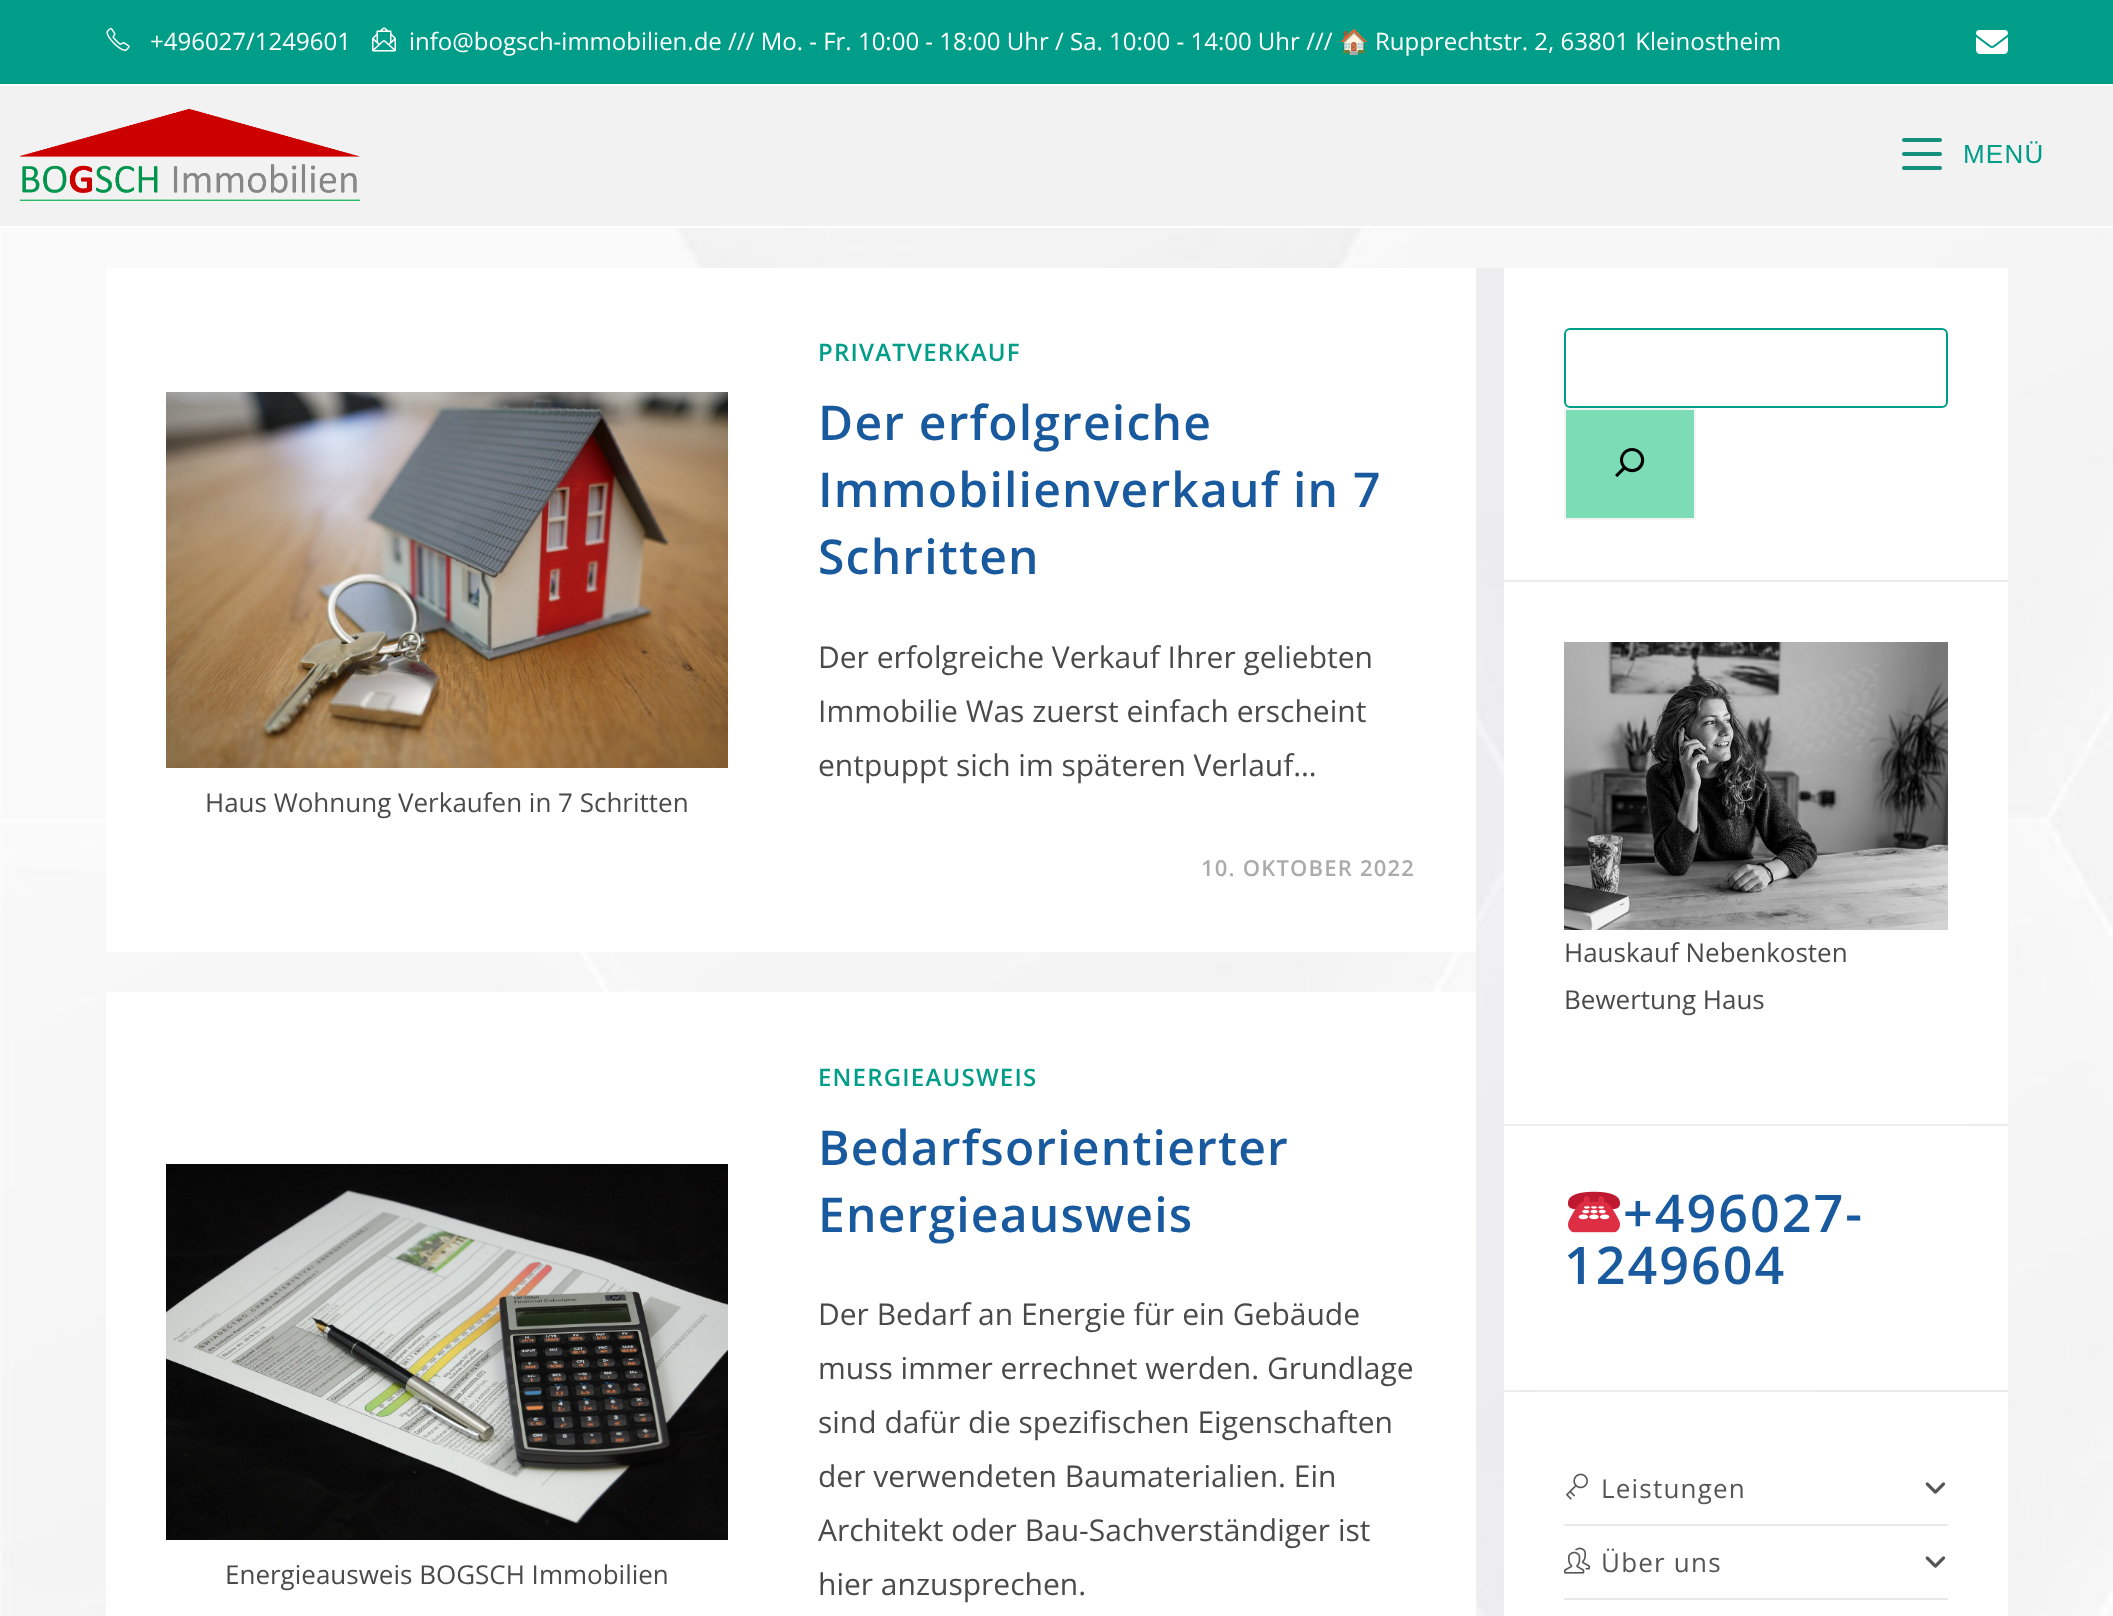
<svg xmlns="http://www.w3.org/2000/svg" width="2113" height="1616">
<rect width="100%" height="100%" fill="#fff"/>
<image x="0" y="228" width="2113" height="1388" href="media/1.png"/>
<rect width="2113" height="84" fill="#009d88"/>
<image x="106" y="27" width="24" height="25" href="media/2.png"/>
<text x="150" y="50" style="font-family:Open Sans;font-size:24px;fill:#fff">+496027/1249601</text>
<image x="372" y="27" width="24" height="25" href="media/3.png"/>
<text x="409" y="50" style="font-family:Open Sans;font-size:24px;fill:#fff">info@bogsch-immobilien.de /// Mo. - Fr. 10:00 - 18:00 Uhr / Sa. 10:00 - 14:00 Uhr ///</text>
<text x="1339" y="50" style="font-family:Noto Color Emoji;font-size:24px;fill:#fff">🏠</text>
<text x="1375" y="50" style="font-family:Open Sans;font-size:24px;fill:#fff">Rupprechtstr. 2, 63801 Kleinostheim</text>
<image x="1976" y="30" width="32" height="24" href="media/4.png"/>
<rect y="86" width="2113" height="140" fill="#f2f2f2"/>
<image x="20" y="108" width="340" height="93" href="media/5.png"/>
<rect x="1902" y="152" width="40" height="4" rx="2" fill="#14917c"/>
<rect x="1902" y="138" width="40" height="4" rx="2" fill="#14917c"/>
<rect x="1902" y="166" width="40" height="4" rx="2" fill="#14917c"/>
<text x="1963" y="163" style="font-family:Liberation Sans;font-size:26px;letter-spacing:1.2px;fill:#009d88">MENÜ</text>
<rect x="106" y="268" width="1370" height="684" fill="#fff"/>
<image x="166" y="392" width="562" height="376" href="media/6.png"/>
<text x="205" y="812" style="font-family:Open Sans;font-size:26px;fill:#4a4a4a">Haus Wohnung Verkaufen in 7 Schritten</text>
<text x="818" y="361" style="font-family:Open Sans;font-size:24px;font-weight:600;letter-spacing:1.2px;fill:#009d88">PRIVATVERKAUF</text>
<text x="818" y="440" style="font-family:Open Sans;font-size:48px;font-weight:600;letter-spacing:1.2px;fill:#19599e">Der erfolgreiche</text>
<text x="818" y="507" style="font-family:Open Sans;font-size:48px;font-weight:600;letter-spacing:1.2px;fill:#19599e">Immobilienverkauf in 7</text>
<text x="818" y="574" style="font-family:Open Sans;font-size:48px;font-weight:600;letter-spacing:1.2px;fill:#19599e">Schritten</text>
<text x="818" y="668" style="font-family:Open Sans;font-size:30px;fill:#4a4a4a">Der erfolgreiche Verkauf Ihrer geliebten</text>
<text x="818" y="722" style="font-family:Open Sans;font-size:30px;fill:#4a4a4a">Immobilie Was zuerst einfach erscheint</text>
<text x="818" y="776" style="font-family:Open Sans;font-size:30px;fill:#4a4a4a">entpuppt sich im späteren Verlauf…</text>
<text x="1201" y="876" style="font-family:Open Sans;font-size:22px;font-weight:600;letter-spacing:1.2px;fill:#ababab">10. OKTOBER 2022</text>
<rect x="106" y="992" width="1370" height="624" fill="#fff"/>
<image x="166" y="1164" width="562" height="376" href="media/7.png"/>
<text x="225" y="1584" style="font-family:Open Sans;font-size:26px;fill:#4a4a4a">Energieausweis BOGSCH Immobilien</text>
<text x="818" y="1086" style="font-family:Open Sans;font-size:24px;font-weight:600;letter-spacing:1.2px;fill:#009d88">ENERGIEAUSWEIS</text>
<text x="818" y="1165" style="font-family:Open Sans;font-size:48px;font-weight:600;letter-spacing:1.2px;fill:#19599e">Bedarfsorientierter</text>
<text x="818" y="1232" style="font-family:Open Sans;font-size:48px;font-weight:600;letter-spacing:1.2px;fill:#19599e">Energieausweis</text>
<text x="818" y="1325" style="font-family:Open Sans;font-size:30px;fill:#4a4a4a">Der Bedarf an Energie für ein Gebäude</text>
<text x="818" y="1379" style="font-family:Open Sans;font-size:30px;fill:#4a4a4a">muss immer errechnet werden. Grundlage</text>
<text x="818" y="1433" style="font-family:Open Sans;font-size:30px;fill:#4a4a4a">sind dafür die spezifischen Eigenschaften</text>
<text x="818" y="1487" style="font-family:Open Sans;font-size:30px;fill:#4a4a4a">der verwendeten Baumaterialien. Ein</text>
<text x="818" y="1541" style="font-family:Open Sans;font-size:30px;fill:#4a4a4a">Architekt oder Bau-Sachverständiger ist</text>
<text x="818" y="1595" style="font-family:Open Sans;font-size:30px;fill:#4a4a4a">hier anzusprechen.</text>
<rect x="1476" y="268" width="532" height="1348" fill="#5f5f870f"/>
<rect x="1504" y="268" width="504" height="312" fill="#fff"/>
<rect x="1565" y="329" width="382" height="78" rx="5" fill="none" stroke="#009d88" stroke-width="2"/>
<rect x="1565" y="409" width="130" height="110" fill="#7bdcb5" stroke="#f4f4f4" stroke-width="2"/>
<image x="1615" y="448" width="30" height="30" href="media/8.png"/>
<rect x="1504" y="582" width="504" height="542" fill="#fff"/>
<image x="1564" y="642" width="384" height="288" href="media/9.png"/>
<text x="1564" y="962" style="font-family:Open Sans;font-size:26px;fill:#4a4a4a">Hauskauf Nebenkosten</text>
<text x="1564" y="1009" style="font-family:Open Sans;font-size:26px;fill:#4a4a4a">Bewertung Haus</text>
<rect x="1504" y="1126" width="504" height="264" fill="#fff"/>
<image x="1568" y="1191" width="52" height="42" href="media/10.png"/>
<text x="1623" y="1232" style="font-family:Open Sans;font-size:52px;font-weight:600;letter-spacing:2px;fill:#19599e">+496027-</text>
<text x="1564" y="1284" style="font-family:Open Sans;font-size:52px;font-weight:600;letter-spacing:2px;fill:#19599e">1249604</text>
<rect x="1504" y="1392" width="504" height="224" fill="#fff"/>
<rect x="1564" y="1524" width="384" height="2" fill="#e9e9e9"/>
<image x="1566" y="1473" width="22" height="27" href="media/11.png"/>
<text x="1601" y="1498" style="font-family:Open Sans;font-size:26px;letter-spacing:1.2px;fill:#555">Leistungen</text>
<image x="1925" y="1482" width="21" height="12" href="media/12.png"/>
<rect x="1564" y="1598" width="384" height="2" fill="#e9e9e9"/>
<image x="1564" y="1547" width="26" height="27" href="media/13.png"/>
<text x="1601" y="1572" style="font-family:Open Sans;font-size:26px;letter-spacing:1.2px;fill:#555">Über uns</text>
<image x="1925" y="1556" width="21" height="12" href="media/12.png"/>
</svg>
